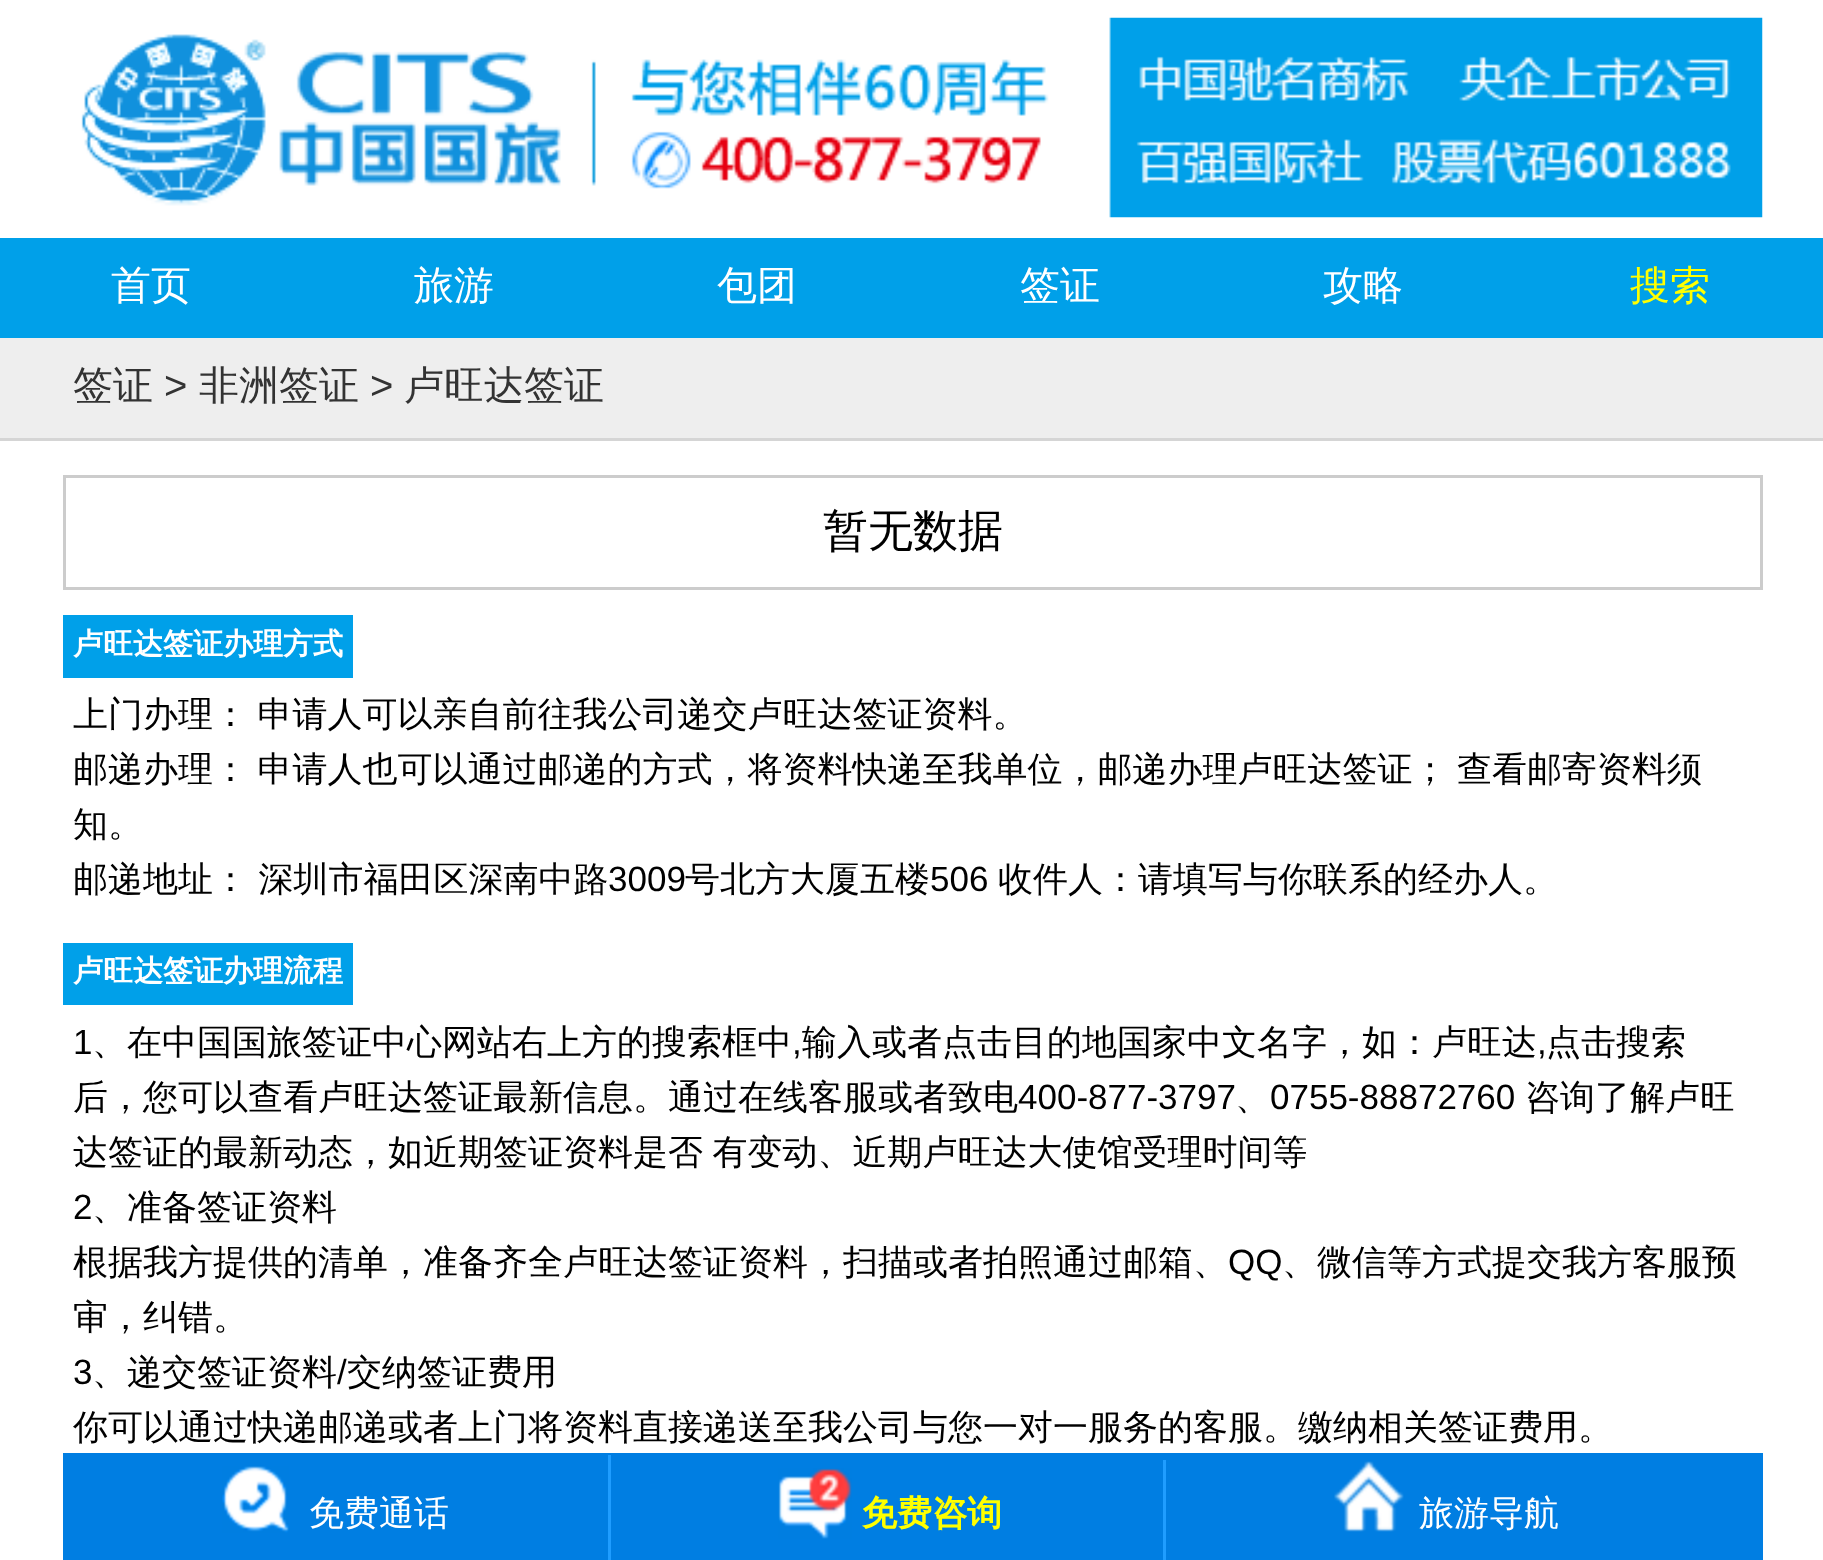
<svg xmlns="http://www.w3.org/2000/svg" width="1823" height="1560">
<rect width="100%" height="100%" fill="#fff"/>
<image x="81" y="17" width="1682" height="201" href="media/1.png"/>
<rect y="238" width="1823" height="100" fill="#00a0e9"/>
<text x="111" y="299" style="font-family:WenQuanYi Zen Hei;font-size:40px;font-weight:500;fill:#fff">首页</text>
<text x="414" y="299" style="font-family:WenQuanYi Zen Hei;font-size:40px;font-weight:500;fill:#fff">旅游</text>
<text x="717" y="299" style="font-family:WenQuanYi Zen Hei;font-size:40px;font-weight:500;fill:#fff">包团</text>
<text x="1020" y="299" style="font-family:WenQuanYi Zen Hei;font-size:40px;font-weight:500;fill:#fff">签证</text>
<text x="1323" y="299" style="font-family:WenQuanYi Zen Hei;font-size:40px;font-weight:500;fill:#fff">攻略</text>
<text x="1630" y="299" style="font-family:WenQuanYi Zen Hei;font-size:40px;font-weight:500;fill:#ff0">搜索</text>
<rect y="338" width="1823" height="100" fill="#eee"/>
<rect y="438" width="1823" height="3" fill="#d5d5d5"/>
<text x="73" y="399" style="font-family:WenQuanYi Zen Hei;font-size:40px;font-weight:500;fill:#333">签证</text>
<text x="164" y="399" style="font-family:Liberation Sans;font-size:40px;fill:#333">&gt;</text>
<text x="199" y="399" style="font-family:WenQuanYi Zen Hei;font-size:40px;font-weight:500;fill:#333">非洲签证</text>
<text x="370" y="399" style="font-family:Liberation Sans;font-size:40px;fill:#333">&gt;</text>
<text x="404" y="399" style="font-family:WenQuanYi Zen Hei;font-size:40px;font-weight:500;fill:#333">卢旺达签证</text>
<rect x="64.5" y="476.5" width="1697" height="112" fill="none" stroke="#ccc" stroke-width="3"/>
<text x="823" y="546" style="font-family:WenQuanYi Zen Hei;font-size:45px;font-weight:500;fill:#000">暂无数据</text>
<rect x="63" y="615" width="290" height="63" fill="#00a0e9"/>
<text x="73" y="654" style="font-family:WenQuanYi Zen Hei;font-size:30px;font-weight:bold;fill:#fff">卢旺达签证办理方式</text>
<text x="73" y="726" word-spacing="-1" style="font-family:WenQuanYi Zen Hei;font-size:35px;font-weight:500;fill:#000">上门办理： 申请人可以亲自前往我公司递交卢旺达签证资料。</text>
<text x="73" y="781" word-spacing="-1" style="font-family:WenQuanYi Zen Hei;font-size:35px;font-weight:500;fill:#000">邮递办理： 申请人也可以通过邮递的方式，将资料快递至我单位，邮递办理卢旺达签证； 查看邮寄资料须</text>
<text x="73" y="836" style="font-family:WenQuanYi Zen Hei;font-size:35px;font-weight:500;fill:#000">知。</text>
<text x="73" y="891" style="font-family:WenQuanYi Zen Hei;font-size:35px;font-weight:500;fill:#000">邮递地址： 深圳市福田区深南中路</text>
<text x="608" y="891" style="font-family:Liberation Sans;font-size:35px;fill:#000">3009</text>
<text x="685" y="891" style="font-family:WenQuanYi Zen Hei;font-size:35px;font-weight:500;fill:#000">号北方大厦五楼</text>
<text x="930" y="891" style="font-family:Liberation Sans;font-size:35px;fill:#000">506</text>
<text x="998" y="891" style="font-family:WenQuanYi Zen Hei;font-size:35px;font-weight:500;fill:#000">收件人：请填写与你联系的经办人。</text>
<rect x="63" y="943" width="290" height="62" fill="#00a0e9"/>
<text x="73" y="981" style="font-family:WenQuanYi Zen Hei;font-size:30px;font-weight:bold;fill:#fff">卢旺达签证办理流程</text>
<text x="73" y="1054" style="font-family:Liberation Sans;font-size:35px;fill:#000">1</text>
<text x="92" y="1054" style="font-family:WenQuanYi Zen Hei;font-size:35px;font-weight:500;fill:#000">、在中国国旅签证中心网站右上方的搜索框中</text>
<text x="792" y="1054" style="font-family:Liberation Sans;font-size:35px;fill:#000">,</text>
<text x="802" y="1054" style="font-family:WenQuanYi Zen Hei;font-size:35px;font-weight:500;fill:#000">输入或者点击目的地国家中文名字，如：卢旺达</text>
<text x="1537" y="1054" style="font-family:Liberation Sans;font-size:35px;fill:#000">,</text>
<text x="1546" y="1054" style="font-family:WenQuanYi Zen Hei;font-size:35px;font-weight:500;fill:#000">点击搜索</text>
<text x="73" y="1109" style="font-family:WenQuanYi Zen Hei;font-size:35px;font-weight:500;fill:#000">后，您可以查看卢旺达签证最新信息。通过在线客服或者致电</text>
<text x="1018" y="1109" style="font-family:Liberation Sans;font-size:35px;fill:#000">400-877-3797</text>
<text x="1235" y="1109" style="font-family:WenQuanYi Zen Hei;font-size:35px;font-weight:500;fill:#000">、</text>
<text x="1270" y="1109" style="font-family:Liberation Sans;font-size:35px;fill:#000">0755-88872760</text>
<text x="1525" y="1109" style="font-family:WenQuanYi Zen Hei;font-size:35px;font-weight:500;fill:#000">咨询了解卢旺</text>
<text x="73" y="1164" word-spacing="-1" style="font-family:WenQuanYi Zen Hei;font-size:35px;font-weight:500;fill:#000">达签证的最新动态，如近期签证资料是否 有变动、近期卢旺达大使馆受理时间等</text>
<text x="73" y="1219" style="font-family:Liberation Sans;font-size:35px;fill:#000">2</text>
<text x="92" y="1219" style="font-family:WenQuanYi Zen Hei;font-size:35px;font-weight:500;fill:#000">、准备签证资料</text>
<text x="73" y="1274" style="font-family:WenQuanYi Zen Hei;font-size:35px;font-weight:500;fill:#000">根据我方提供的清单，准备齐全卢旺达签证资料，扫描或者拍照通过邮箱、</text>
<text x="1228" y="1274" style="font-family:Liberation Sans;font-size:35px;fill:#000">QQ</text>
<text x="1282" y="1274" style="font-family:WenQuanYi Zen Hei;font-size:35px;font-weight:500;fill:#000">、微信等方式提交我方客服预</text>
<text x="73" y="1329" style="font-family:WenQuanYi Zen Hei;font-size:35px;font-weight:500;fill:#000">审，纠错。</text>
<text x="73" y="1384" style="font-family:Liberation Sans;font-size:35px;fill:#000">3</text>
<text x="92" y="1384" style="font-family:WenQuanYi Zen Hei;font-size:35px;font-weight:500;fill:#000">、递交签证资料</text>
<text x="337" y="1384" style="font-family:Liberation Sans;font-size:35px;fill:#000">/</text>
<text x="347" y="1384" style="font-family:WenQuanYi Zen Hei;font-size:35px;font-weight:500;fill:#000">交纳签证费用</text>
<text x="73" y="1439" style="font-family:WenQuanYi Zen Hei;font-size:35px;font-weight:500;fill:#000">你可以通过快递邮递或者上门将资料直接递送至我公司与您一对一服务的客服。缴纳相关签证费用。</text>
<rect x="63" y="1453" width="1700" height="107" fill="#007ee2"/>
<rect x="608" y="1455" width="3" height="105" fill="#1f9dff"/>
<image x="222" y="1466" width="67" height="67" href="media/2.png"/>
<text x="309" y="1525" style="font-family:WenQuanYi Zen Hei;font-size:35px;font-weight:500;fill:#fff">免费通话</text>
<rect x="1163" y="1460" width="3" height="100" fill="#1f9dff"/>
<image x="778" y="1468" width="74" height="71" href="media/3.png"/>
<text x="862" y="1525" style="font-family:WenQuanYi Zen Hei;font-size:35px;font-weight:bold;fill:#ff0">免费咨询</text>
<image x="1334" y="1461" width="70" height="71" href="media/4.png"/>
<text x="1419" y="1525" style="font-family:WenQuanYi Zen Hei;font-size:35px;font-weight:500;fill:#fff">旅游导航</text>
</svg>
